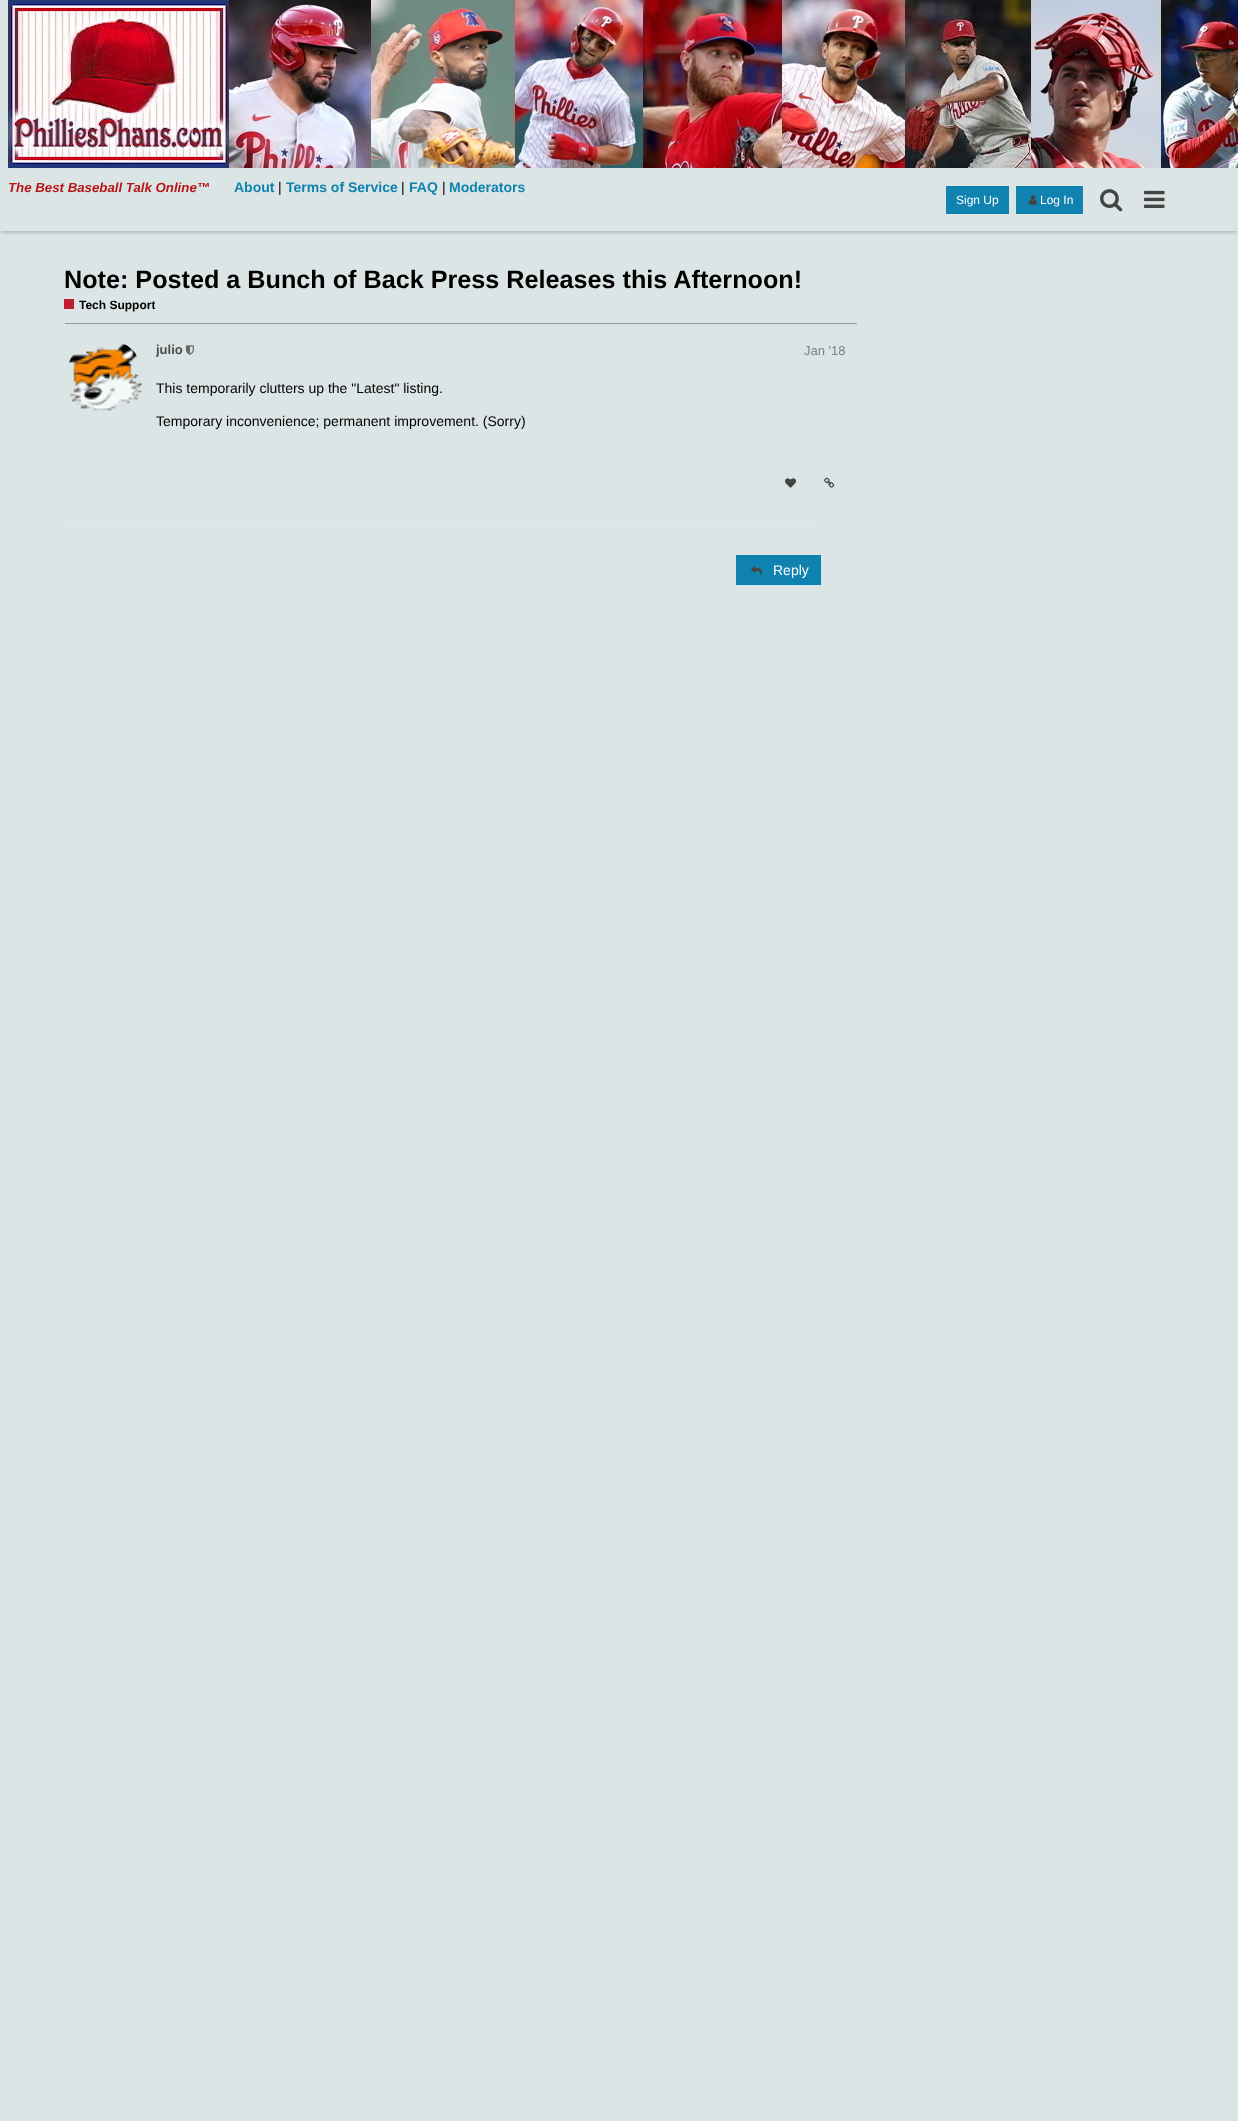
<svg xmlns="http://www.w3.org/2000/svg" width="1238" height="2121">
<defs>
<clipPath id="clip1"><rect x="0" y="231" width="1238" height="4"/></clipPath>
<clipPath id="clip2"><rect x="79" y="298" width="76" height="15"/></clipPath>
</defs>
<rect width="100%" height="100%" fill="#dce5e5"/>
<image x="8" y="0" width="1230" height="168" href="media/1.png"/>
<g clip-path="url(#clip1)">
<rect x="1" y="171" width="1236" height="61" fill="#00000040" filter="blur(2px)"/>
</g>
<text x="8" y="192" style="font-family:Liberation Sans;font-size:13.25px;font-weight:bold;font-style:italic;fill:#b71616">The Best Baseball Talk Online™</text>
<text x="234" y="192" style="font-family:Liberation Sans;font-size:14px;font-weight:bold;fill:#0f82af">About</text>
<text x="278" y="192" style="font-family:Liberation Sans;font-size:14px;fill:#000">|</text>
<text x="286" y="192" style="font-family:Liberation Sans;font-size:14px;font-weight:bold;fill:#0f82af">Terms of Service</text>
<text x="401" y="192" style="font-family:Liberation Sans;font-size:14px;fill:#000">|</text>
<text x="409" y="192" style="font-family:Liberation Sans;font-size:14px;font-weight:bold;fill:#0f82af">FAQ</text>
<text x="442" y="192" style="font-family:Liberation Sans;font-size:14px;fill:#000">|</text>
<text x="449" y="192" style="font-family:Liberation Sans;font-size:14px;font-weight:bold;fill:#0f82af">Moderators</text>
<rect x="946" y="186" width="63" height="28" fill="#0f82af"/>
<text x="956" y="204" style="font-family:Liberation Sans;font-size:12px;fill:#fff">Sign Up</text>
<rect x="1016" y="186" width="67" height="28" fill="#0f82af"/>
<image x="1029" y="195" width="8" height="10" href="media/2.png"/>
<text x="1040" y="204" style="font-family:Liberation Sans;font-size:12px;fill:#fff">Log In</text>
<image x="1100" y="189" width="23" height="23" href="media/3.png"/>
<image x="1144" y="190" width="21" height="18" href="media/4.png"/>
<text x="64" y="288" style="font-family:Liberation Sans;font-size:25.2px;font-weight:bold;fill:#000">Note: Posted a Bunch of Back Press Releases this Afternoon!</text>
<rect x="64" y="299" width="10" height="10" fill="#bf1e2e"/>
<g clip-path="url(#clip2)">
<text x="79" y="309" style="font-family:Liberation Sans;font-size:12px;font-weight:bold;fill:#000">Tech Support</text>
</g>
<image x="68" y="344" width="74" height="67" href="media/5.png"/>
<rect x="65" y="323" width="792" height="1" fill="#999"/>
<text x="156" y="354" style="font-family:Liberation Sans;font-size:13px;font-weight:bold;fill:#4d4d4d">julio</text>
<image x="186" y="345" width="8" height="10" href="media/6.png"/>
<text x="804" y="355" style="font-family:Liberation Sans;font-size:13px;fill:#808080">Jan '18</text>
<text x="156" y="393" style="font-family:Liberation Sans;font-size:14px;fill:#000">This temporarily clutters up the "Latest" listing.</text>
<text x="156" y="426" style="font-family:Liberation Sans;font-size:14px;fill:#000">Temporary inconvenience; permanent improvement. (Sorry)</text>
<image x="785" y="478" width="11" height="10" href="media/7.png"/>
<image x="824" y="477" width="11" height="11" href="media/8.png"/>
<rect x="64" y="524" width="757" height="1" fill="#e6e6e6"/>
<rect x="736" y="555" width="85" height="30" fill="#0f82af"/>
<image x="751" y="566" width="11" height="10" href="media/9.png"/>
<text x="773" y="575" style="font-family:Liberation Sans;font-size:14px;fill:#fff">Reply</text>
</svg>
